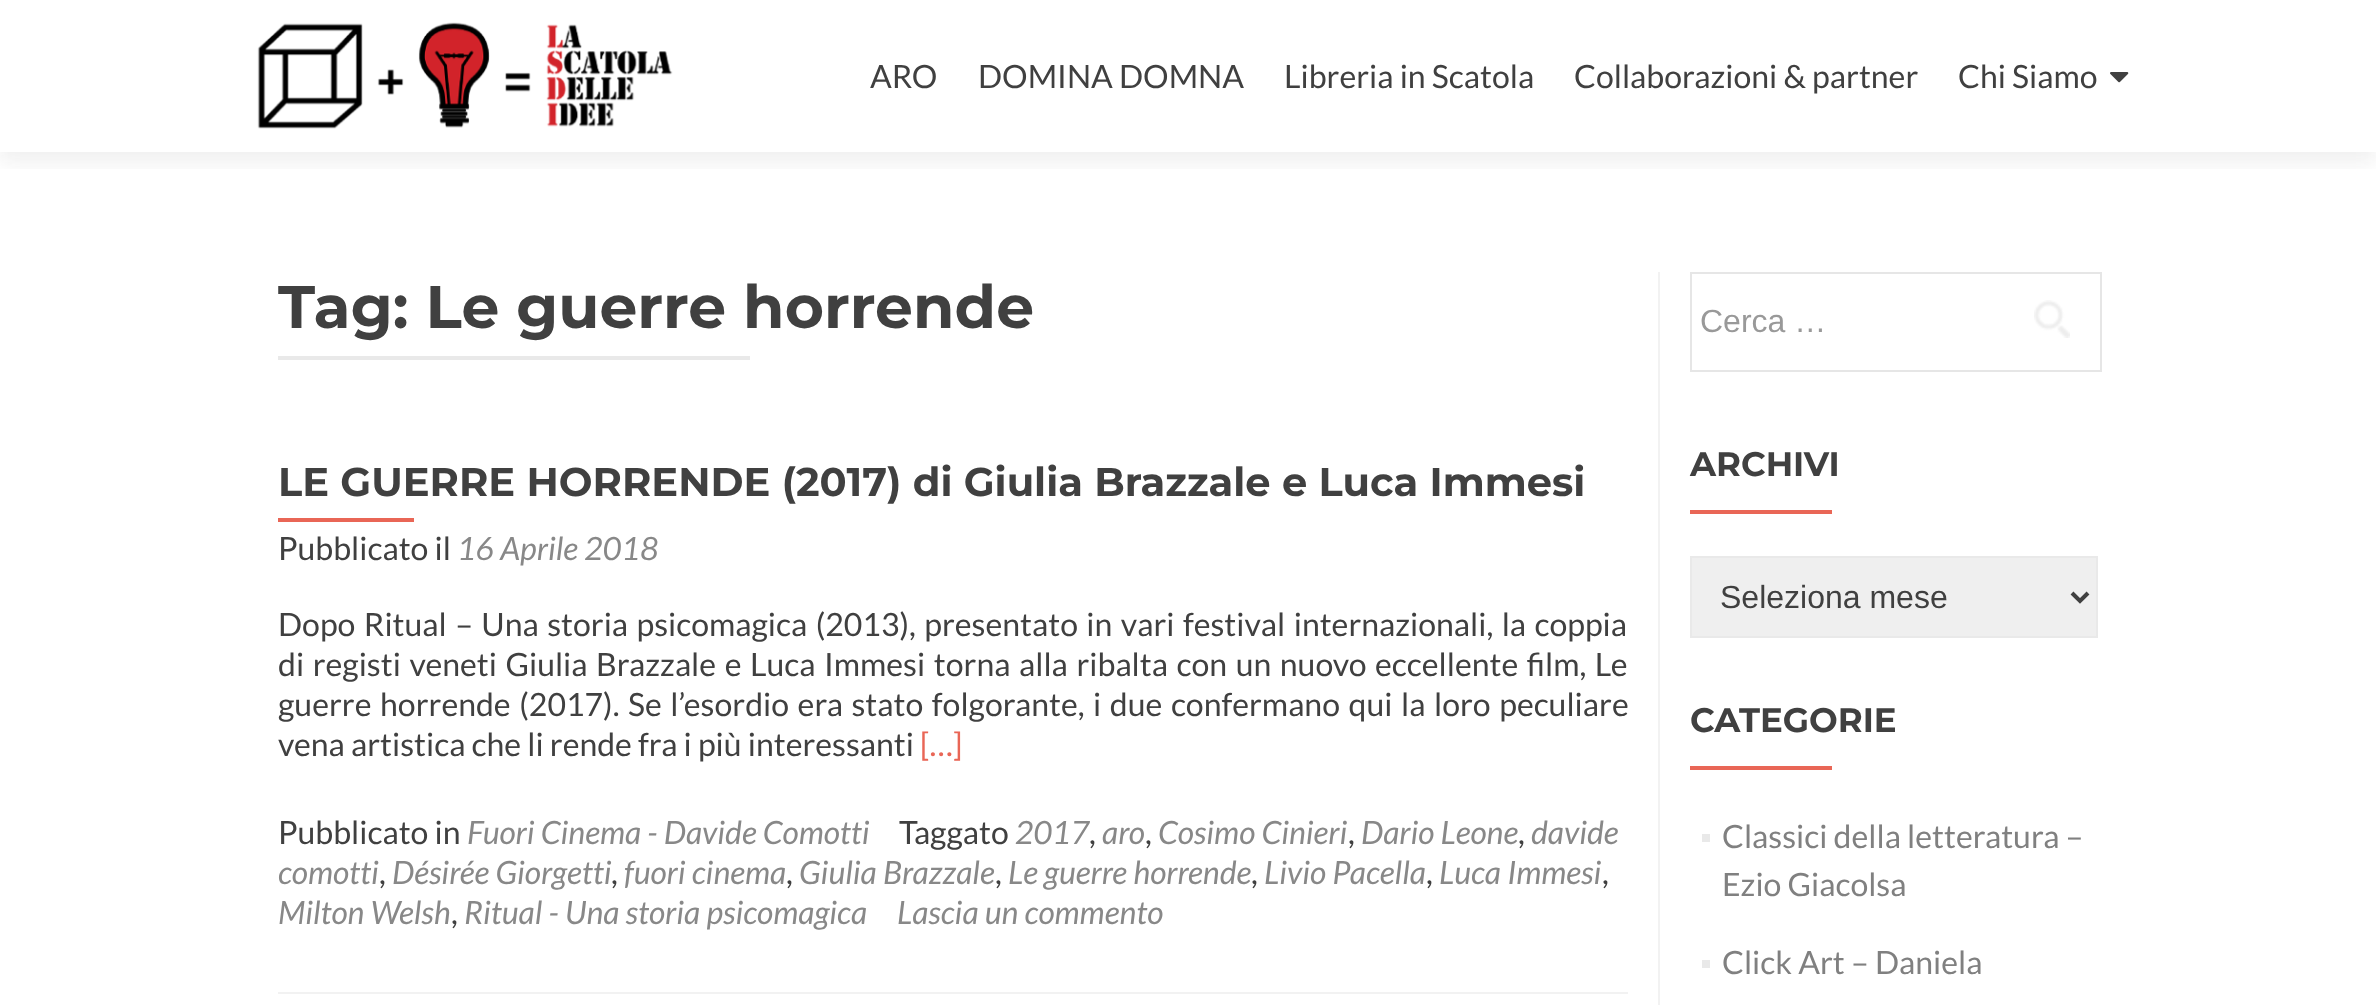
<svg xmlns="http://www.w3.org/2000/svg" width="2376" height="1005">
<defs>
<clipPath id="clip1"><rect x="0" y="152" width="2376" height="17"/></clipPath>
</defs>
<rect width="100%" height="100%" fill="#fff"/>
<g clip-path="url(#clip1)">
<rect y="10" width="2376" height="152" fill="#32323214" filter="blur(11px)"/>
</g>
<image x="257" y="22" width="416" height="107" href="media/1.png"/>
<text x="870" y="88" style="font-family:Lato;font-size:32px;fill:#404040">ARO</text>
<text x="978" y="88" style="font-family:Lato;font-size:32px;fill:#404040">DOMINA DOMNA</text>
<text x="1284" y="88" style="font-family:Lato;font-size:32px;fill:#404040">Libreria in Scatola</text>
<text x="1574" y="88" style="font-family:Lato;font-size:32px;fill:#404040">Collaborazioni &amp; partner</text>
<text x="1958" y="88" style="font-family:Lato;font-size:32px;fill:#404040">Chi Siamo</text>
<image x="2110" y="72" width="19" height="11" href="media/2.png"/>
<text x="278" y="328" style="font-family:Montserrat;font-size:60px;font-weight:bold;fill:#404040">Tag: Le guerre horrende</text>
<rect x="278" y="356" width="472" height="4" fill="#e9e9e9"/>
<rect x="278" y="992" width="1350" height="2" fill="#f2f2f2"/>
<text x="278" y="496" style="font-family:Montserrat;font-size:40px;font-weight:bold;fill:#404040">LE GUERRE HORRENDE (2017) di Giulia Brazzale e Luca Immesi</text>
<rect x="278" y="518" width="136" height="4" fill="#e96656"/>
<text x="278" y="560" style="font-family:Lato;font-size:32px;fill:#404040">Pubblicato il</text>
<text x="457" y="560" style="font-family:Lato;font-size:32px;font-style:italic;fill:#888">16 Aprile 2018</text>
<text x="278" y="636" word-spacing="2.25" style="font-family:Lato;font-size:32px;fill:#404040">Dopo Ritual – Una storia psicomagica (2013), presentato in vari festival internazionali, la coppia</text>
<text x="278" y="676" word-spacing="2.4" style="font-family:Lato;font-size:32px;fill:#404040">di registi veneti Giulia Brazzale e Luca Immesi torna alla ribalta con un nuovo eccellente film, Le</text>
<text x="278" y="716" word-spacing="2.4" style="font-family:Lato;font-size:32px;fill:#404040">guerre horrende (2017). Se l’esordio era stato folgorante, i due confermano qui la loro peculiare</text>
<text x="278" y="756" style="font-family:Lato;font-size:32px;fill:#404040">vena artistica che li rende fra i più interessanti</text>
<text x="920" y="756" style="font-family:Lato;font-size:32px;fill:#e96656">[…]</text>
<text x="278" y="844" style="font-family:Lato;font-size:32px;fill:#404040">Pubblicato in</text>
<text x="467" y="844" style="font-family:Lato;font-size:32px;font-style:italic;fill:#888">Fuori Cinema - Davide Comotti</text>
<text x="899" y="844" style="font-family:Lato;font-size:32px;fill:#404040">Taggato</text>
<text x="1015" y="844" style="font-family:Lato;font-size:32px;font-style:italic;fill:#888">2017</text>
<text x="1089" y="844" style="font-family:Lato;font-size:32px;fill:#404040">,</text>
<text x="1102" y="844" style="font-family:Lato;font-size:32px;font-style:italic;fill:#888">aro</text>
<text x="1145" y="844" style="font-family:Lato;font-size:32px;fill:#404040">,</text>
<text x="1158" y="844" style="font-family:Lato;font-size:32px;font-style:italic;fill:#888">Cosimo Cinieri</text>
<text x="1348" y="844" style="font-family:Lato;font-size:32px;fill:#404040">,</text>
<text x="1361" y="844" style="font-family:Lato;font-size:32px;font-style:italic;fill:#888">Dario Leone</text>
<text x="1518" y="844" style="font-family:Lato;font-size:32px;fill:#404040">,</text>
<text x="1531" y="844" style="font-family:Lato;font-size:32px;font-style:italic;fill:#888">davide</text>
<text x="278" y="884" style="font-family:Lato;font-size:32px;font-style:italic;fill:#888">comotti</text>
<text x="379" y="884" style="font-family:Lato;font-size:32px;fill:#404040">,</text>
<text x="392" y="884" style="font-family:Lato;font-size:32px;font-style:italic;fill:#888">Désirée Giorgetti</text>
<text x="611" y="884" style="font-family:Lato;font-size:32px;fill:#404040">,</text>
<text x="624" y="884" style="font-family:Lato;font-size:32px;font-style:italic;fill:#888">fuori cinema</text>
<text x="786" y="884" style="font-family:Lato;font-size:32px;fill:#404040">,</text>
<text x="799" y="884" style="font-family:Lato;font-size:32px;font-style:italic;fill:#888">Giulia Brazzale</text>
<text x="995" y="884" style="font-family:Lato;font-size:32px;fill:#404040">,</text>
<text x="1008" y="884" style="font-family:Lato;font-size:32px;font-style:italic;fill:#888">Le guerre horrende</text>
<text x="1251" y="884" style="font-family:Lato;font-size:32px;fill:#404040">,</text>
<text x="1264" y="884" style="font-family:Lato;font-size:32px;font-style:italic;fill:#888">Livio Pacella</text>
<text x="1426" y="884" style="font-family:Lato;font-size:32px;fill:#404040">,</text>
<text x="1439" y="884" style="font-family:Lato;font-size:32px;font-style:italic;fill:#888">Luca Immesi</text>
<text x="1602" y="884" style="font-family:Lato;font-size:32px;fill:#404040">,</text>
<text x="278" y="924" style="font-family:Lato;font-size:32px;font-style:italic;fill:#888">Milton Welsh</text>
<text x="451" y="924" style="font-family:Lato;font-size:32px;fill:#404040">,</text>
<text x="464" y="924" style="font-family:Lato;font-size:32px;font-style:italic;fill:#888">Ritual - Una storia psicomagica</text>
<text x="897" y="924" style="font-family:Lato;font-size:32px;font-style:italic;fill:#888">Lascia un commento</text>
<rect x="1658" y="272" width="2" height="733" fill="#f2f2f2"/>
<rect x="1691" y="273" width="410" height="98" fill="none" stroke="#e6e6e6" stroke-width="2"/>
<text x="1700" y="332" style="font-family:Liberation Sans;font-size:32px;fill:#999">Cerca …</text>
<image x="2034" y="300" width="36" height="38" href="media/3.png"/>
<text x="1690" y="476" style="font-family:Montserrat;font-size:34px;font-weight:bold;fill:#404040">ARCHIVI</text>
<rect x="1690" y="510" width="142" height="4" fill="#e96656"/>
<rect x="1691" y="557" width="406" height="80" fill="#efefef" stroke="#e9e9e9" stroke-width="2"/>
<path d="M2072 593l8 8l8-8" fill="none" stroke="#404040" stroke-width="4"/>
<text x="1720" y="608" style="font-family:Liberation Sans;font-size:32px;fill:#404040">Seleziona mese</text>
<text x="1690" y="732" style="font-family:Montserrat;font-size:34px;font-weight:bold;fill:#404040">CATEGORIE</text>
<rect x="1690" y="766" width="142" height="4" fill="#e96656"/>
<rect x="1702" y="834" width="8" height="8" fill="#e9e9e9"/>
<text x="1722" y="848" style="font-family:Lato;font-size:32px;fill:#808080">Classici della letteratura –</text>
<text x="1722" y="896" style="font-family:Lato;font-size:32px;fill:#808080">Ezio Giacolsa</text>
<rect x="1702" y="960" width="8" height="8" fill="#e9e9e9"/>
<text x="1722" y="974" style="font-family:Lato;font-size:32px;fill:#808080">Click Art – Daniela</text>
</svg>
